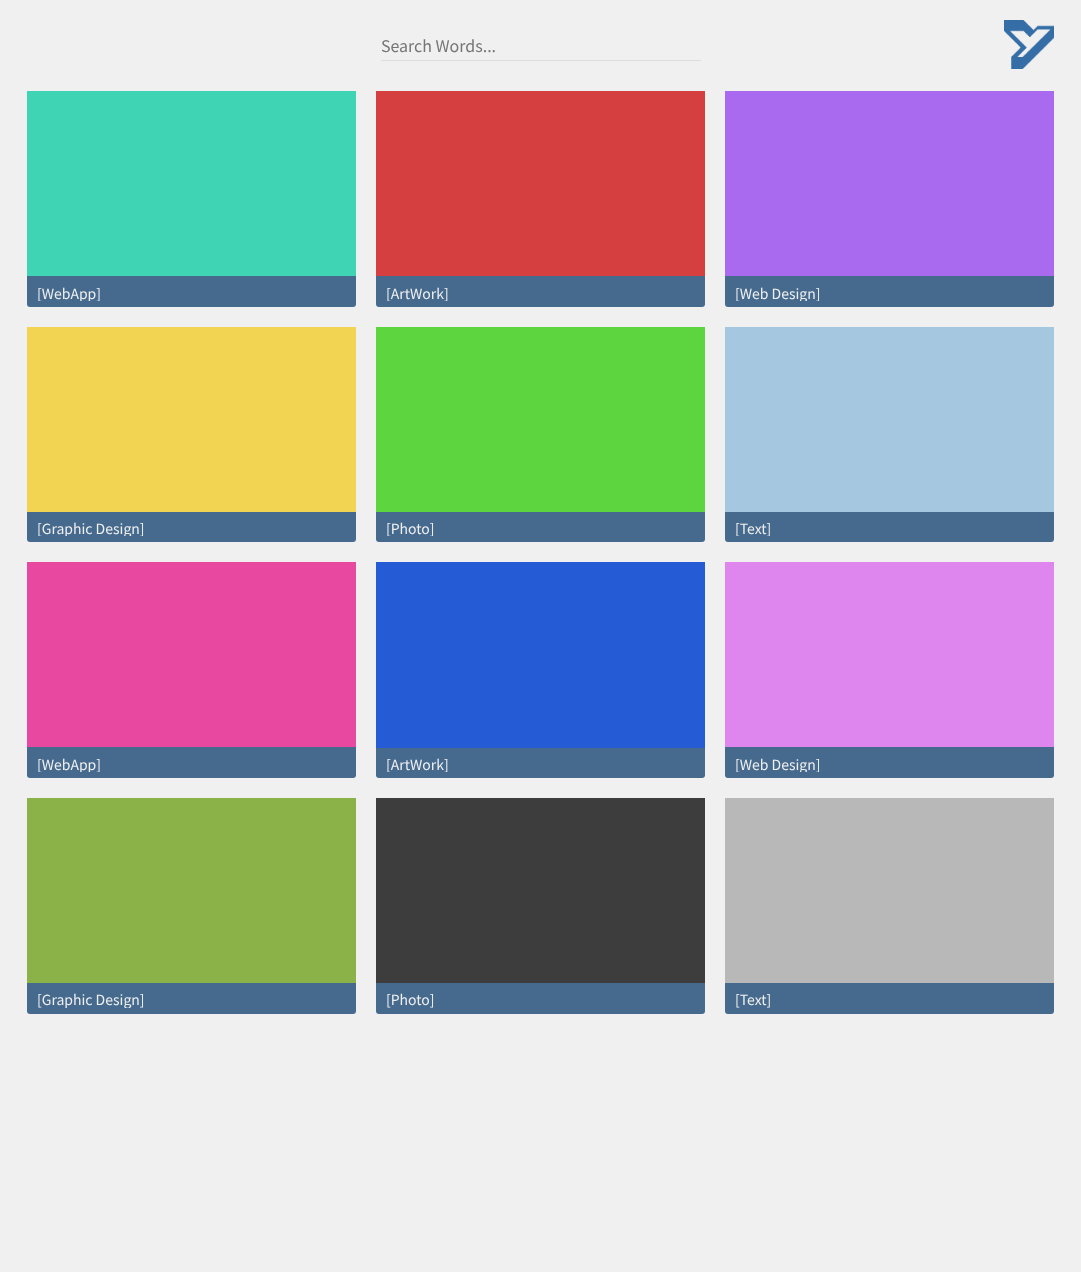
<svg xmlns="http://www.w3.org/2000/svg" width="1081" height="1272">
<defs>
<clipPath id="clip1"><rect x="37" y="285" width="309" height="16"/></clipPath>
<clipPath id="clip2"><rect x="386" y="285" width="309" height="16"/></clipPath>
<clipPath id="clip3"><rect x="735" y="285" width="309" height="16"/></clipPath>
<clipPath id="clip4"><rect x="37" y="520" width="309" height="16"/></clipPath>
<clipPath id="clip5"><rect x="386" y="520" width="309" height="16"/></clipPath>
<clipPath id="clip6"><rect x="735" y="520" width="309" height="16"/></clipPath>
<clipPath id="clip7"><rect x="37" y="756" width="309" height="16"/></clipPath>
<clipPath id="clip8"><rect x="386" y="756" width="309" height="16"/></clipPath>
<clipPath id="clip9"><rect x="735" y="756" width="309" height="16"/></clipPath>
<clipPath id="clip10"><rect x="37" y="991" width="309" height="17"/></clipPath>
</defs>
<rect width="100%" height="100%" fill="#f0f0f0"/>
<rect x="381" y="60" width="320" height="1" fill="#ddd"/>
<text x="381" y="52" style="font-family:Noto Sans JP;font-size:16px;font-weight:100;fill:#757575">Search Words...</text>
<rect x="27" y="91" width="329" height="216" rx="3" fill="#456a8e"/>
<rect x="27" y="91" width="329" height="185" fill="#3fd4b4"/>
<g clip-path="url(#clip1)">
<text x="37" y="299" style="font-family:Noto Sans JP;font-size:14px;font-weight:100;fill:#f0f0f0">[WebApp]</text>
</g>
<rect x="376" y="91" width="329" height="216" rx="3" fill="#456a8e"/>
<rect x="376" y="91" width="329" height="185" fill="#d53f40"/>
<g clip-path="url(#clip2)">
<text x="386" y="299" style="font-family:Noto Sans JP;font-size:14px;font-weight:100;fill:#f0f0f0">[ArtWork]</text>
</g>
<rect x="725" y="91" width="329" height="216" rx="3" fill="#456a8e"/>
<rect x="725" y="91" width="329" height="185" fill="#a96aef"/>
<g clip-path="url(#clip3)">
<text x="735" y="299" style="font-family:Noto Sans JP;font-size:14px;font-weight:100;fill:#f0f0f0">[Web Design]</text>
</g>
<rect x="27" y="327" width="329" height="215" rx="3" fill="#456a8e"/>
<rect x="27" y="327" width="329" height="185" fill="#f2d452"/>
<g clip-path="url(#clip4)">
<text x="37" y="534" style="font-family:Noto Sans JP;font-size:14px;font-weight:100;fill:#f0f0f0">[Graphic Design]</text>
</g>
<rect x="376" y="327" width="329" height="215" rx="3" fill="#456a8e"/>
<rect x="376" y="327" width="329" height="185" fill="#5dd53f"/>
<g clip-path="url(#clip5)">
<text x="386" y="534" style="font-family:Noto Sans JP;font-size:14px;font-weight:100;fill:#f0f0f0">[Photo]</text>
</g>
<rect x="725" y="327" width="329" height="215" rx="3" fill="#456a8e"/>
<rect x="725" y="327" width="329" height="185" fill="#a5c7e0"/>
<g clip-path="url(#clip6)">
<text x="735" y="534" style="font-family:Noto Sans JP;font-size:14px;font-weight:100;fill:#f0f0f0">[Text]</text>
</g>
<rect x="27" y="562" width="329" height="216" rx="3" fill="#456a8e"/>
<rect x="27" y="562" width="329" height="185" fill="#e848a0"/>
<g clip-path="url(#clip7)">
<text x="37" y="770" style="font-family:Noto Sans JP;font-size:14px;font-weight:100;fill:#f0f0f0">[WebApp]</text>
</g>
<rect x="376" y="562" width="329" height="216" rx="3" fill="#456a8e"/>
<rect x="376" y="562" width="329" height="186" fill="#255bd5"/>
<g clip-path="url(#clip8)">
<text x="386" y="770" style="font-family:Noto Sans JP;font-size:14px;font-weight:100;fill:#f0f0f0">[ArtWork]</text>
</g>
<rect x="725" y="562" width="329" height="216" rx="3" fill="#456a8e"/>
<rect x="725" y="562" width="329" height="185" fill="#de86ee"/>
<g clip-path="url(#clip9)">
<text x="735" y="770" style="font-family:Noto Sans JP;font-size:14px;font-weight:100;fill:#f0f0f0">[Web Design]</text>
</g>
<rect x="27" y="798" width="329" height="216" rx="3" fill="#456a8e"/>
<rect x="27" y="798" width="329" height="185" fill="#8bb248"/>
<g clip-path="url(#clip10)">
<text x="37" y="1005" style="font-family:Noto Sans JP;font-size:14px;font-weight:100;fill:#f0f0f0">[Graphic Design]</text>
</g>
<rect x="376" y="798" width="329" height="216" rx="3" fill="#456a8e"/>
<rect x="376" y="798" width="329" height="185" fill="#3d3d3d"/>
<text x="386" y="1005" style="font-family:Noto Sans JP;font-size:14px;font-weight:100;fill:#f0f0f0">[Photo]</text>
<rect x="725" y="798" width="329" height="216" rx="3" fill="#456a8e"/>
<rect x="725" y="798" width="329" height="185" fill="#b8b8b8"/>
<text x="735" y="1005" style="font-family:Noto Sans JP;font-size:14px;font-weight:100;fill:#f0f0f0">[Text]</text>
<image x="1004" y="20" width="50" height="49" href="media/1.png"/>
</svg>
